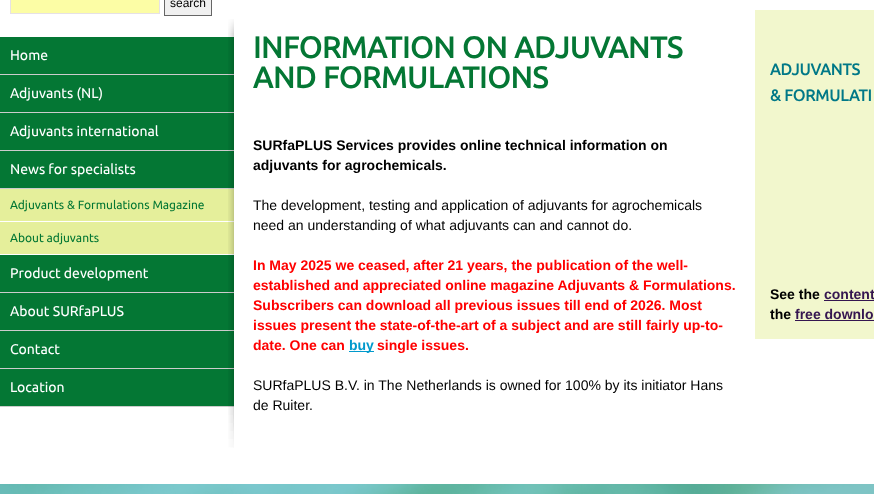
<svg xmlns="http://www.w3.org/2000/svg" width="874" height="494">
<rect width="100%" height="100%" fill="#fff"/>
<image x="0" y="484" width="874" height="10" href="media/1.png"/>
<rect x="10.5" y="-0.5" width="149" height="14" fill="#fcfda5" stroke="#e6e1e5"/>
<rect x="164.5" y="-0.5" width="47" height="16" fill="#f0f0f0" stroke="#666"/>
<text x="170" y="7" style="font-family:Liberation Sans;font-size:12px;fill:#000">search</text>
<image x="228" y="19" width="6" height="14" href="media/2.png"/>
<rect y="37" width="234" height="37" fill="#047734"/>
<rect y="74" width="234" height="1" fill="#ccc"/>
<text x="10" y="60" style="font-family:Ubuntu;font-size:14px;fill:#fff">Home</text>
<rect y="75" width="234" height="37" fill="#047734"/>
<rect y="112" width="234" height="1" fill="#ccc"/>
<text x="10" y="98" style="font-family:Ubuntu;font-size:14px;fill:#fff">Adjuvants (NL)</text>
<rect y="113" width="234" height="37" fill="#047734"/>
<rect y="150" width="234" height="1" fill="#ccc"/>
<text x="10" y="136" style="font-family:Ubuntu;font-size:14px;fill:#fff">Adjuvants international</text>
<rect y="151" width="234" height="37" fill="#047734"/>
<rect y="188" width="234" height="1" fill="#ccc"/>
<text x="10" y="174" style="font-family:Ubuntu;font-size:14px;fill:#fff">News for specialists</text>
<rect y="189" width="234" height="32" fill="#e5ef9b"/>
<text x="10" y="209" style="font-family:Ubuntu;font-size:12px;fill:#047734">Adjuvants &amp; Formulations Magazine</text>
<rect y="222" width="234" height="32" fill="#e5ef9b"/>
<text x="10" y="242" style="font-family:Ubuntu;font-size:12px;fill:#047734">About adjuvants</text>
<rect y="255" width="234" height="37" fill="#047734"/>
<rect y="292" width="234" height="1" fill="#ccc"/>
<text x="10" y="278" style="font-family:Ubuntu;font-size:14px;fill:#fff">Product development</text>
<rect y="293" width="234" height="37" fill="#047734"/>
<rect y="330" width="234" height="1" fill="#ccc"/>
<text x="10" y="316" style="font-family:Ubuntu;font-size:14px;fill:#fff">About SURfaPLUS</text>
<rect y="331" width="234" height="37" fill="#047734"/>
<rect y="368" width="234" height="1" fill="#ccc"/>
<text x="10" y="354" style="font-family:Ubuntu;font-size:14px;fill:#fff">Contact</text>
<rect y="369" width="234" height="37" fill="#047734"/>
<rect y="406" width="234" height="1" fill="#ccc"/>
<text x="10" y="392" style="font-family:Ubuntu;font-size:14px;fill:#fff">Location</text>
<image x="228" y="33" width="6" height="374" href="media/3.png"/>
<image x="228" y="407" width="6" height="41" href="media/4.png"/>
<text x="253" y="58" style="font-family:Ubuntu;font-size:30px;font-weight:bold;fill:#047734">INFORMATION ON ADJUVANTS</text>
<text x="253" y="88" style="font-family:Ubuntu;font-size:30px;font-weight:bold;fill:#047734">AND FORMULATIONS</text>
<text x="253" y="150" style="font-family:Liberation Sans;font-size:14px;font-weight:bold;fill:#000">SURfaPLUS Services provides online technical information on</text>
<text x="253" y="170" style="font-family:Liberation Sans;font-size:14px;font-weight:bold;fill:#000">adjuvants for agrochemicals.</text>
<text x="253" y="210" style="font-family:Liberation Sans;font-size:14px;fill:#000">The development, testing and application of adjuvants for agrochemicals</text>
<text x="253" y="230" style="font-family:Liberation Sans;font-size:14px;fill:#000">need an understanding of what adjuvants can and cannot do.</text>
<text x="253" y="270" style="font-family:Liberation Sans;font-size:14px;font-weight:bold;fill:#f00">In May 2025 we ceased, after 21 years, the publication of the well-</text>
<text x="253" y="290" style="font-family:Liberation Sans;font-size:14px;font-weight:bold;fill:#f00">established and appreciated online magazine Adjuvants &amp; Formulations.</text>
<text x="253" y="310" style="font-family:Liberation Sans;font-size:14px;font-weight:bold;fill:#f00">Subscribers can download all previous issues till end of 2026. Most</text>
<text x="253" y="330" style="font-family:Liberation Sans;font-size:14px;font-weight:bold;fill:#f00">issues present the state-of-the-art of a subject and are still fairly up-to-</text>
<text x="253" y="350" style="font-family:Liberation Sans;font-size:14px;font-weight:bold;fill:#f00">date. One can</text>
<rect x="349" y="351" width="25" height="1" fill="#09c"/>
<text x="349" y="350" style="font-family:Liberation Sans;font-size:14px;font-weight:bold;fill:#09c">buy</text>
<text x="377" y="350" style="font-family:Liberation Sans;font-size:14px;font-weight:bold;fill:#f00">single issues.</text>
<text x="253" y="390" style="font-family:Liberation Sans;font-size:14px;fill:#000">SURfaPLUS B.V. in The Netherlands is owned for 100% by its initiator Hans</text>
<text x="253" y="410" style="font-family:Liberation Sans;font-size:14px;fill:#000">de Ruiter.</text>
<rect x="755" y="10" width="119" height="329" fill="#f2f7cd"/>
<text x="770" y="75" style="font-family:Ubuntu;font-size:16px;font-weight:bold;fill:#007887">ADJUVANTS</text>
<text x="770" y="101" style="font-family:Ubuntu;font-size:16px;font-weight:bold;fill:#007887">&amp; FORMULATI</text>
<text x="770" y="299" style="font-family:Liberation Sans;font-size:14px;font-weight:bold;fill:#000">See the</text>
<text x="824" y="299" style="font-family:Liberation Sans;font-size:14px;font-weight:bold;fill:#351650">content</text>
<rect x="824" y="300" width="50" height="1" fill="#351650"/>
<text x="770" y="319" style="font-family:Liberation Sans;font-size:14px;font-weight:bold;fill:#000">the</text>
<text x="795" y="319" style="font-family:Liberation Sans;font-size:14px;font-weight:bold;fill:#351650">free downlo</text>
<rect x="795" y="320" width="79" height="1" fill="#351650"/>
</svg>
